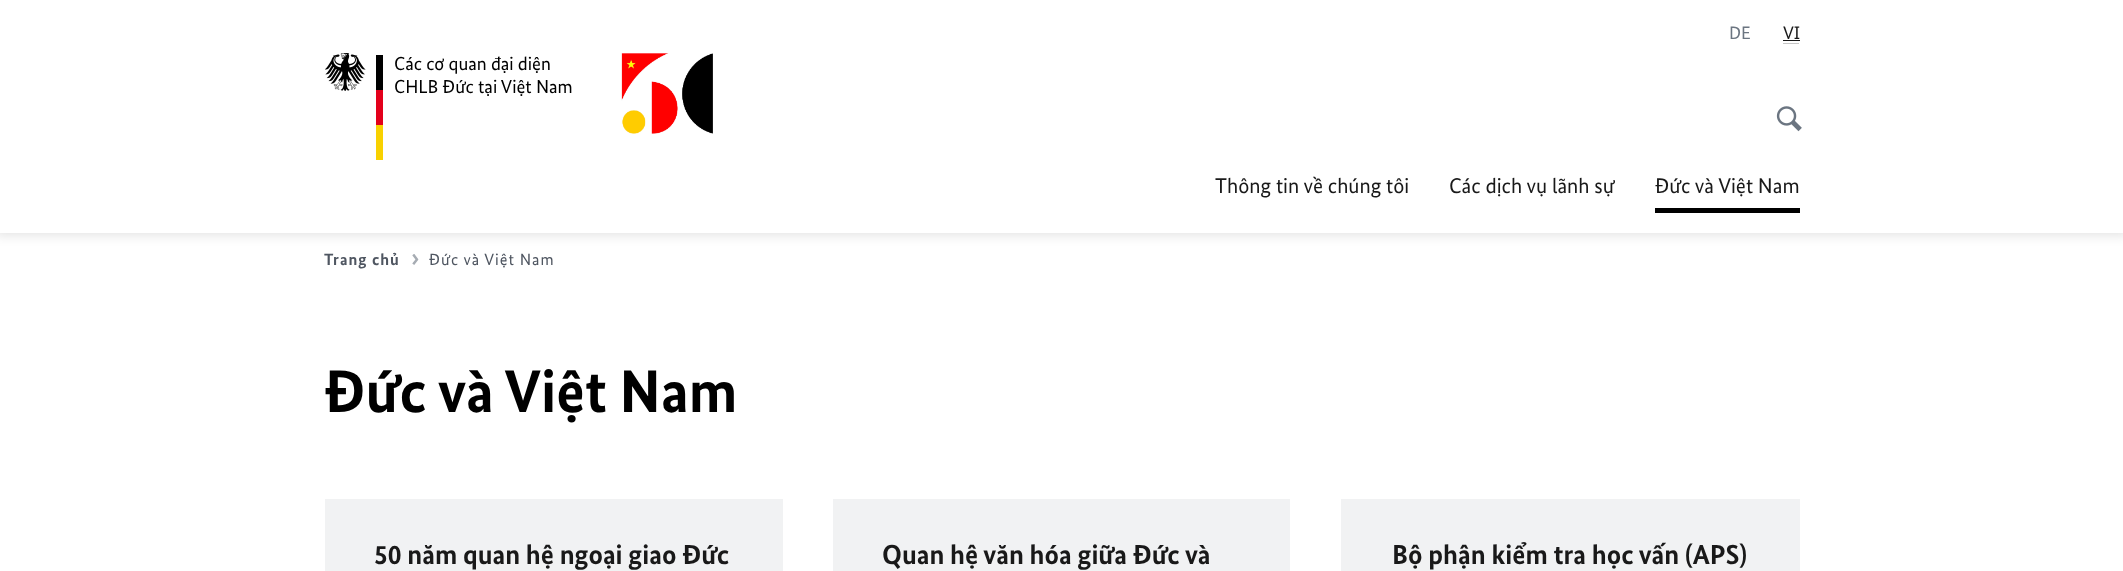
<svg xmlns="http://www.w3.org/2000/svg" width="2123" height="571">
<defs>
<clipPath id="clip1"><path d="M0 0h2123v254h-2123zm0 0h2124v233h-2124z" clip-rule="evenodd"/></clipPath>
</defs>
<rect width="100%" height="100%" fill="#fff"/>
<g clip-path="url(#clip1)">
<rect x="-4" y="-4" width="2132" height="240" fill="#0000001a" filter="blur(5.5px)"/>
</g>
<image x="325" y="53" width="58" height="107" href="media/1.png"/>
<text x="394" y="70" style="font-family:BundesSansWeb;font-size:18.75px;fill:#000">Các cơ quan đại diện</text>
<text x="394" y="93" style="font-family:BundesSansWeb;font-size:18.75px;fill:#000">CHLB Đức tại Việt Nam</text>
<image x="621" y="53" width="92" height="81" href="media/2.png"/>
<text x="1729" y="39" style="font-family:BundesSansWeb;font-size:18px;fill:#6b7581">DE</text>
<text x="1783" y="39" style="font-family:BundesSansWeb;font-size:18px;fill:#191919">VI</text>
<rect x="1783" y="40" width="17" height="1" fill="#191919"/>
<rect x="1783" y="43" width="16" height="1" fill="#c6c6c6"/>
<image x="1776" y="106" width="26" height="26" href="media/3.png"/>
<text x="1215" y="193" style="font-family:BundesSansWeb;font-size:21.25px;fill:#191919">Thông tin về chúng tôi</text>
<text x="1449" y="193" style="font-family:BundesSansWeb;font-size:21.25px;fill:#191919">Các dịch vụ lãnh sự</text>
<text x="1655" y="193" style="font-family:BundesSansWeb;font-size:21.25px;fill:#191919">Đức và Việt Nam</text>
<rect x="1655" y="208" width="145" height="5" fill="#000"/>
<text x="324" y="265" style="font-family:BundesSansWeb;font-size:16.25px;font-weight:bold;letter-spacing:1px;fill:#4f5661">Trang chủ</text>
<image x="412" y="254" width="7" height="11" href="media/4.png"/>
<text x="429" y="265" style="font-family:BundesSansWeb;font-size:16.25px;letter-spacing:1px;fill:#4f5661">Đức và Việt Nam</text>
<text x="324" y="412" style="font-family:BundesSansWeb;font-size:60px;font-weight:bold;fill:#000">Đức và Việt Nam</text>
<rect x="325" y="499" width="458" height="72" fill="#f1f2f3"/>
<text x="374" y="564" style="font-family:BundesSansWeb;font-size:27.5px;font-weight:bold;fill:#191919">50 năm quan hệ ngoại giao Đức</text>
<rect x="833" y="499" width="457" height="72" fill="#f1f2f3"/>
<text x="882" y="564" style="font-family:BundesSansWeb;font-size:27.5px;font-weight:bold;fill:#191919">Quan hệ văn hóa giữa Đức và</text>
<rect x="1341" y="499" width="459" height="72" fill="#f1f2f3"/>
<text x="1392" y="564" style="font-family:BundesSansWeb;font-size:27.5px;font-weight:bold;fill:#191919">Bộ phận kiểm tra học vấn (APS)</text>
</svg>
